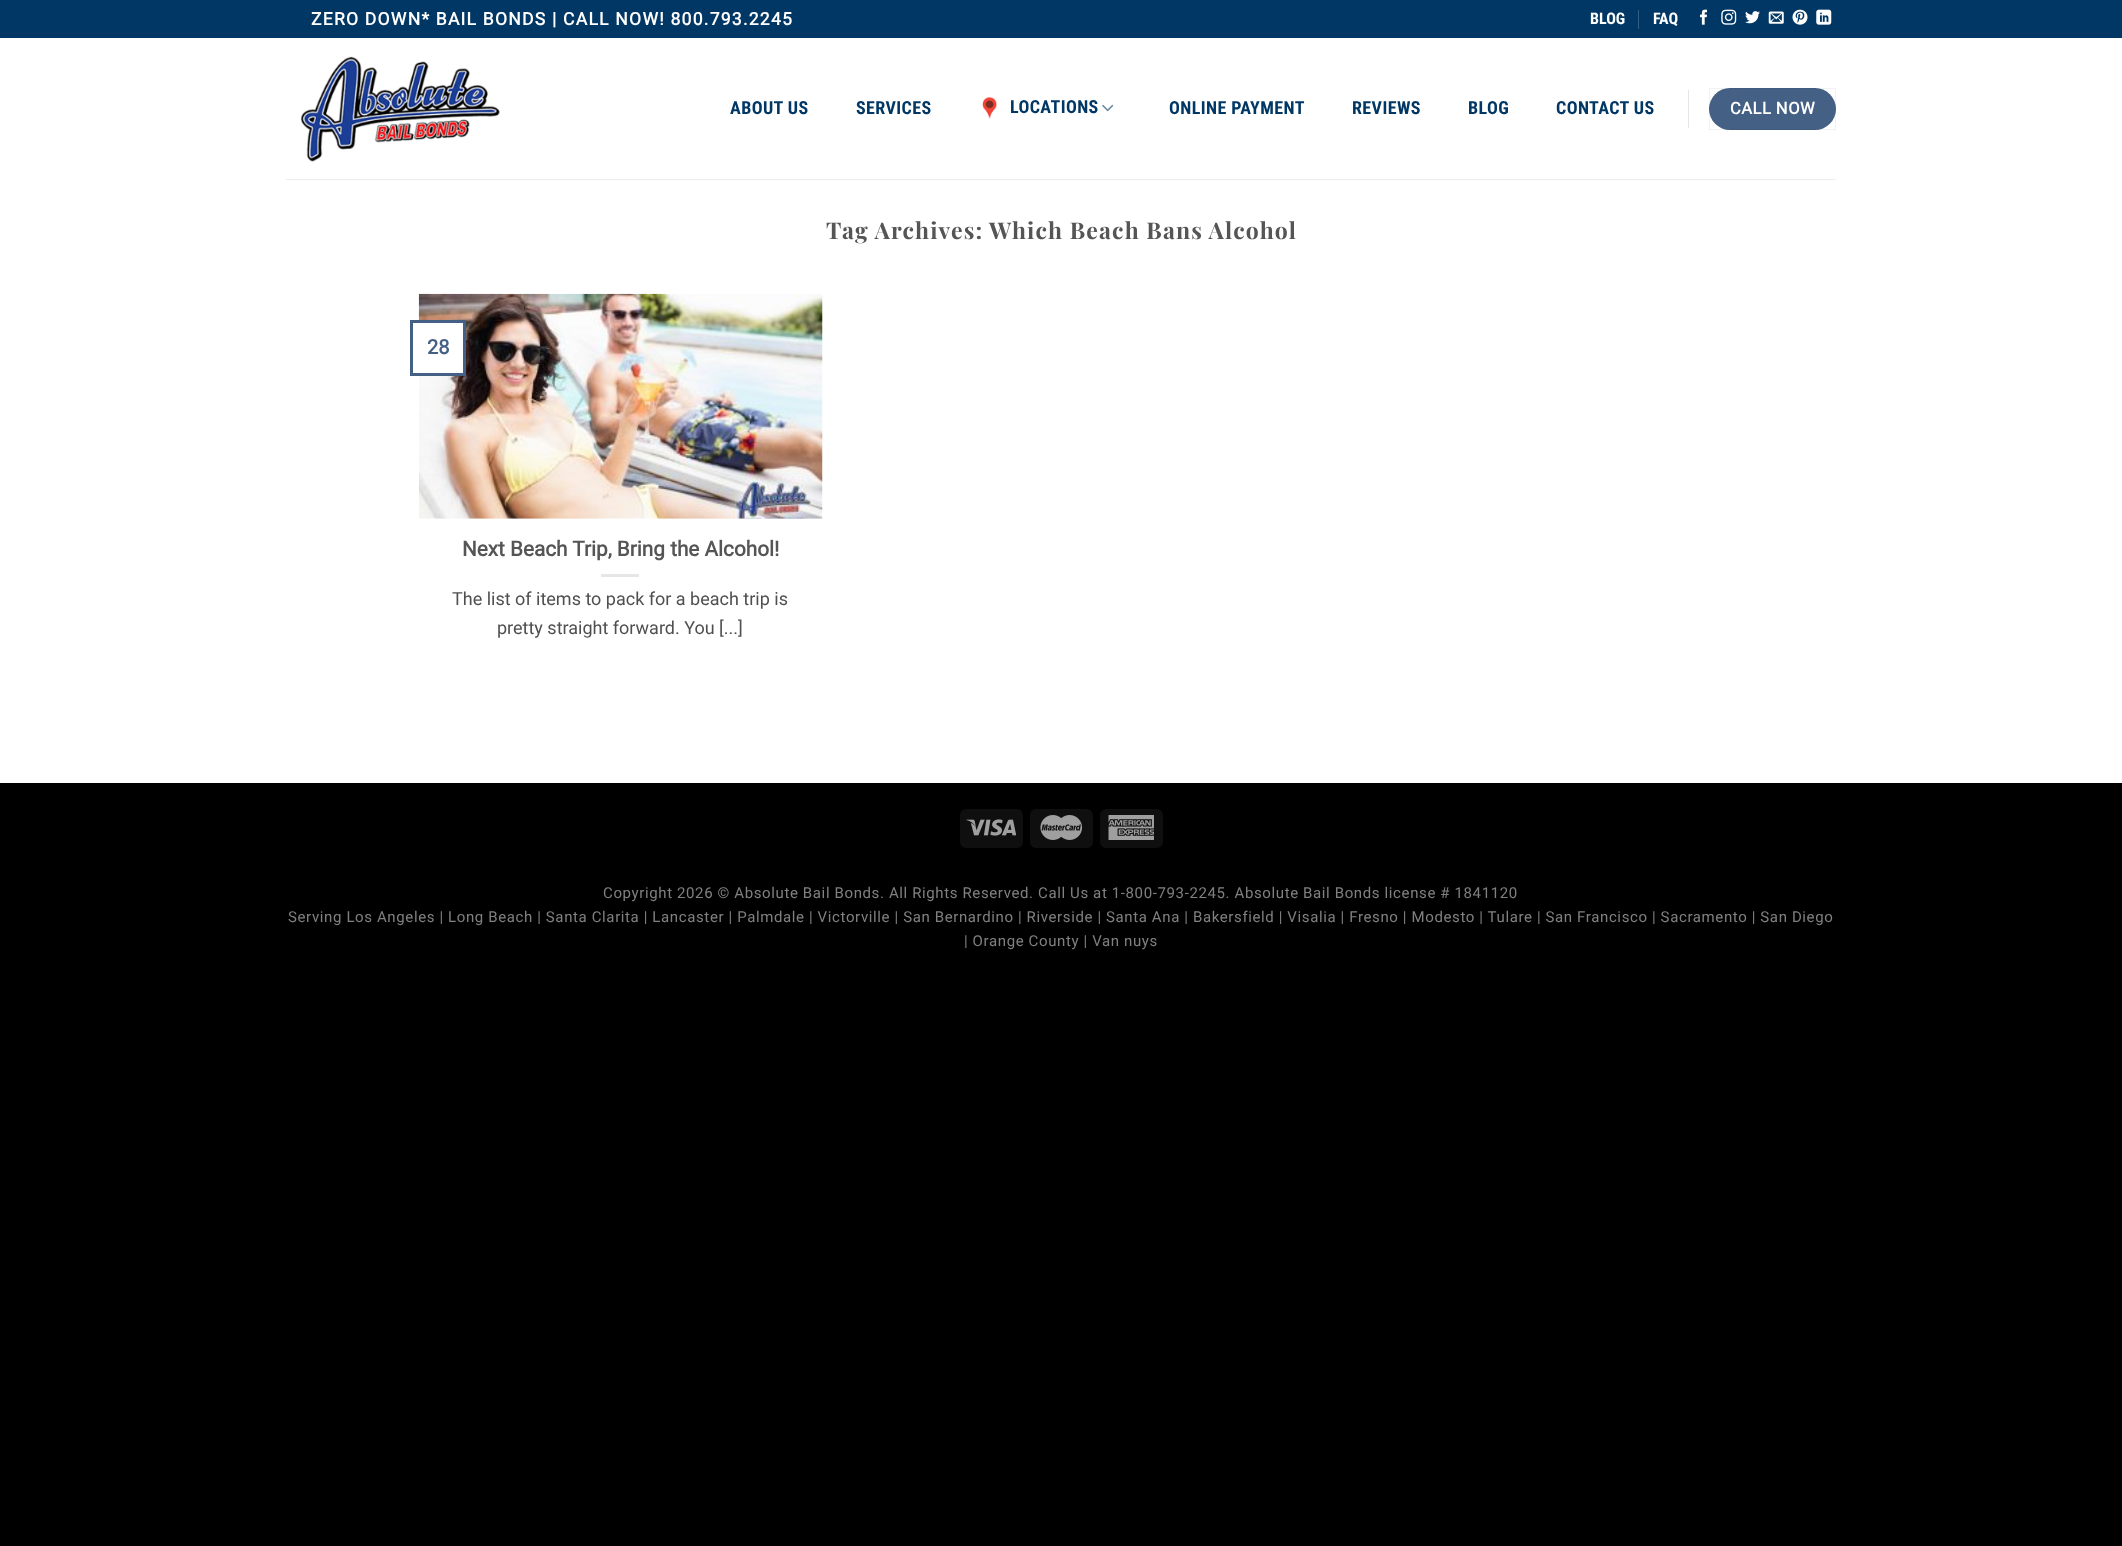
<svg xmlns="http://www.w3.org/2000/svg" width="2122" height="1546">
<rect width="100%" height="100%" fill="#000"/>
<rect y="38" width="2122" height="745" fill="#fff"/>
<rect width="2122" height="38" fill="#003764"/>
<text x="311" y="25" style="font-family:Roboto;font-size:17.5px;font-weight:bold;letter-spacing:1.25px;fill:#fff">ZERO DOWN* BAIL BONDS | CALL NOW! 800.793.2245</text>
<text x="1590" y="24" style="font-family:Roboto Condensed;font-size:16px;font-weight:bold;fill:#fff">BLOG</text>
<rect x="1638" y="10" width="1" height="19" fill="#335f83"/>
<text x="1653" y="24" style="font-family:Roboto Condensed;font-size:16px;font-weight:bold;fill:#fff">FAQ</text>
<image x="1700" y="9" width="7" height="16" href="media/1.png"/>
<image x="1721" y="9" width="16" height="16" href="media/2.png"/>
<image x="1745" y="11" width="15" height="13" href="media/3.png"/>
<image x="1768" y="11" width="16" height="13" href="media/4.png"/>
<image x="1792" y="9" width="16" height="16" href="media/5.png"/>
<image x="1816" y="9" width="16" height="16" href="media/6.png"/>
<image x="300" y="56" width="200" height="106" href="media/7.png"/>
<text x="730" y="114" style="font-family:Roboto Condensed;font-size:18px;font-weight:bold;letter-spacing:0.4px;fill:#003764">ABOUT US</text>
<text x="856" y="114" style="font-family:Roboto Condensed;font-size:18px;font-weight:bold;letter-spacing:0.4px;fill:#003764">SERVICES</text>
<image x="982" y="97" width="15" height="22" href="media/8.png"/>
<text x="1010" y="113" style="font-family:Roboto Condensed;font-size:18px;font-weight:bold;letter-spacing:0.4px;fill:#003764">LOCATIONS</text>
<image x="1102" y="104" width="12" height="8" href="media/9.png"/>
<text x="1169" y="114" style="font-family:Roboto Condensed;font-size:18px;font-weight:bold;letter-spacing:0.4px;fill:#003764">ONLINE PAYMENT</text>
<text x="1352" y="114" style="font-family:Roboto Condensed;font-size:18px;font-weight:bold;letter-spacing:0.4px;fill:#003764">REVIEWS</text>
<text x="1468" y="114" style="font-family:Roboto Condensed;font-size:18px;font-weight:bold;letter-spacing:0.4px;fill:#003764">BLOG</text>
<text x="1556" y="114" style="font-family:Roboto Condensed;font-size:18px;font-weight:bold;letter-spacing:0.4px;fill:#003764">CONTACT US</text>
<rect x="1688" y="90" width="1" height="38" fill="#e6e6e6"/>
<rect x="1709" y="88" width="127" height="42" rx="21" fill="#446084"/>
<rect x="1709.5" y="88.5" width="126" height="41" fill="none" stroke="#0000000d"/>
<text x="1730" y="114" style="font-family:Roboto;font-size:16.5px;font-weight:bold;letter-spacing:0.5px;fill:#fff">CALL NOW</text>
<rect x="286" y="179" width="1550" height="1" fill="#ededed"/>
<text x="826" y="239" style="font-family:Playfair Display;font-size:23px;font-weight:bold;letter-spacing:1.15px;fill:#555">Tag Archives:</text>
<text x="989" y="239" style="font-family:Playfair Display;font-size:23px;font-weight:bold;letter-spacing:1.15px;fill:#555">Which Beach Bans Alcohol</text>
<image x="418" y="293" width="405" height="226" href="media/10.png"/>
<rect x="418" y="323" width="45" height="50" fill="#fff"/>
<rect x="411.5" y="321.5" width="53" height="53" fill="none" stroke="#446084" stroke-width="3"/>
<text x="427" y="354" style="font-family:Roboto;font-size:20px;font-weight:bold;fill:#446084">28</text>
<text x="462" y="556" style="font-family:Roboto;font-size:20.75px;font-weight:bold;fill:#555">Next Beach Trip, Bring the Alcohol!</text>
<rect x="601" y="574" width="38" height="3" fill="#e6e6e6"/>
<text x="452" y="605" style="font-family:Roboto;font-size:18px;fill:#4f4f4f">The list of items to pack for a beach trip is</text>
<text x="497" y="634" style="font-family:Roboto;font-size:18px;fill:#4f4f4f">pretty straight forward. You [...]</text>
<rect x="960" y="809" width="63" height="39" rx="6" fill="#0f0f0f"/>
<image x="966" y="819" width="50" height="17" href="media/11.png"/>
<rect x="1030" y="809" width="63" height="39" rx="6" fill="#0f0f0f"/>
<image x="1040" y="815" width="43" height="25" href="media/12.png"/>
<rect x="1100" y="809" width="63" height="39" rx="6" fill="#0f0f0f"/>
<image x="1108" y="815" width="46" height="25" href="media/13.png"/>
<text x="603" y="898" style="font-family:Roboto;font-size:15px;letter-spacing:0.62px;fill:#808080">Copyright 2026 © Absolute Bail Bonds. All Rights Reserved. Call Us at 1-800-793-2245. Absolute Bail Bonds license # 1841120</text>
<text x="288" y="922" style="font-family:Roboto;font-size:15px;letter-spacing:0.62px;fill:#808080">Serving Los Angeles | Long Beach | Santa Clarita | Lancaster | Palmdale | Victorville | San Bernardino | Riverside | Santa Ana | Bakersfield | Visalia | Fresno | Modesto | Tulare | San Francisco | Sacramento | San Diego</text>
<text x="964" y="946" style="font-family:Roboto;font-size:15px;letter-spacing:0.62px;fill:#808080">| Orange County | Van nuys</text>
</svg>
